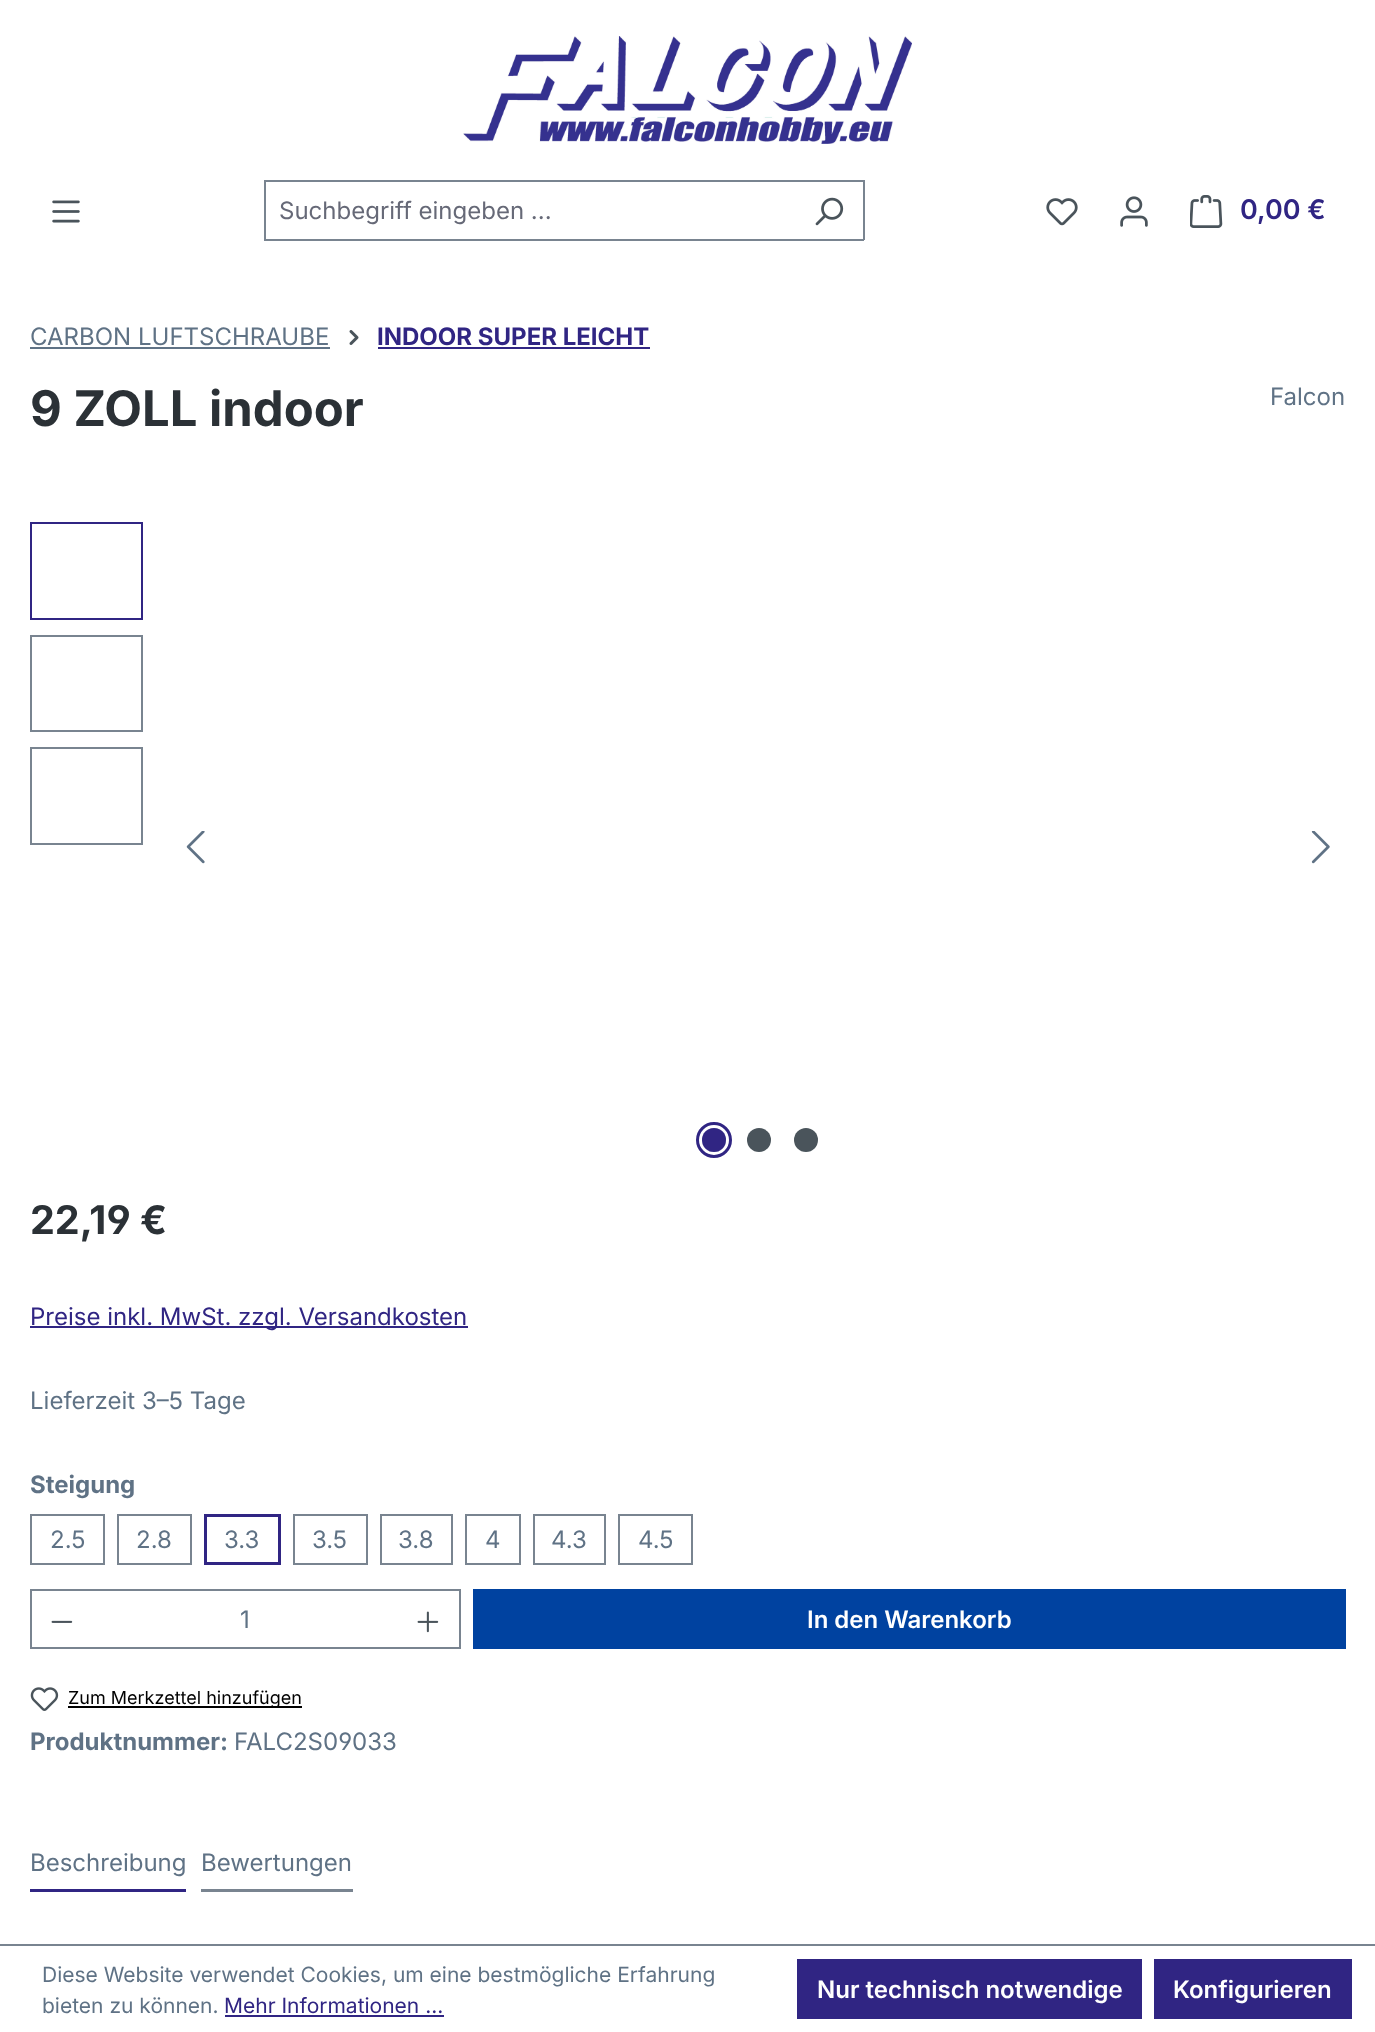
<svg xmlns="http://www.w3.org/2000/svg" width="1375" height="2032">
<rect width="100%" height="100%" fill="#fff"/>
<image x="463" y="36" width="449" height="108" href="media/1.png"/>
<image x="52" y="200" width="28" height="23" href="media/2.png"/>
<rect x="264" y="180" width="600" height="2" fill="#798490"/>
<rect x="264" y="239" width="531" height="2" fill="#798490"/>
<rect x="264" y="180" width="2" height="60" fill="#798490"/>
<text x="279" y="219" style="font-family:Inter;font-size:24px;fill:#666977">Suchbegriff eingeben ...</text>
<rect x="863" y="180" width="2" height="60" fill="#798490"/>
<rect x="794" y="239" width="70" height="2" fill="#798490"/>
<image x="815" y="197" width="29" height="29" href="media/3.png"/>
<image x="1046" y="198" width="32" height="28" href="media/4.png"/>
<image x="1120" y="196" width="28" height="31" href="media/5.png"/>
<image x="1190" y="195" width="33" height="33" href="media/6.png"/>
<text x="1240" y="219" style="font-family:Inter;font-size:27px;font-weight:600;fill:#302583">0,00 €</text>
<text x="30" y="345" style="font-family:Inter;font-size:24px;fill:#5f7285">CARBON LUFTSCHRAUBE</text>
<rect x="30" y="347" width="300" height="2" fill="#5f7285"/>
<image x="349" y="330" width="10" height="15" href="media/7.png"/>
<text x="377" y="345" style="font-family:Inter;font-size:24px;font-weight:bold;fill:#302583">INDOOR SUPER LEICHT</text>
<rect x="378" y="347" width="272" height="2" fill="#302583"/>
<text x="30" y="426" style="font-family:Inter;font-size:49px;font-weight:bold;fill:#2b3136">9 ZOLL indoor</text>
<text x="1270" y="405" style="font-family:Inter;font-size:24px;fill:#5f7285">Falcon</text>
<rect x="31" y="523" width="111" height="96" fill="none" stroke="#302583" stroke-width="2"/>
<rect x="31" y="636" width="111" height="95" fill="none" stroke="#798490" stroke-width="2"/>
<rect x="31" y="748" width="111" height="96" fill="none" stroke="#798490" stroke-width="2"/>
<image x="186" y="831" width="19" height="33" href="media/8.png"/>
<image x="1311" y="831" width="19" height="33" href="media/9.png"/>
<circle cx="714" cy="1140" r="15" fill="none" stroke="#302583" stroke-width="6"/>
<circle cx="714" cy="1140" r="13.5" fill="none" stroke="#fff" stroke-width="3"/>
<circle cx="714" cy="1140" r="12" fill="#302583"/>
<circle cx="759" cy="1140" r="12" fill="#4a545b"/>
<circle cx="806" cy="1140" r="12" fill="#4a545b"/>
<text x="30" y="1234" style="font-family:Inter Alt;font-size:39.5px;font-weight:bold;fill:#2b3136">22,19 €</text>
<rect x="30" y="1326" width="438" height="2" fill="#302583"/>
<text x="30" y="1325" style="font-family:Inter;font-size:24px;fill:#302583">Preise inkl. MwSt. zzgl. Versandkosten</text>
<text x="30" y="1409" style="font-family:Inter;font-size:24px;fill:#5f7285">Lieferzeit 3–5 Tage</text>
<text x="30" y="1493" style="font-family:Inter;font-size:24px;font-weight:bold;fill:#5f7285">Steigung</text>
<rect x="31" y="1515" width="73" height="49" fill="none" stroke="#798490" stroke-width="2"/>
<text x="50" y="1548" style="font-family:Inter;font-size:24px;fill:#5f7285">2.5</text>
<rect x="118" y="1515" width="73" height="49" fill="none" stroke="#798490" stroke-width="2"/>
<text x="136" y="1548" style="font-family:Inter;font-size:24px;fill:#5f7285">2.8</text>
<rect x="205.5" y="1515.5" width="74" height="48" fill="none" stroke="#302583" stroke-width="3"/>
<text x="224" y="1548" style="font-family:Inter;font-size:24px;fill:#5f7285">3.3</text>
<rect x="294" y="1515" width="73" height="49" fill="none" stroke="#798490" stroke-width="2"/>
<text x="312" y="1548" style="font-family:Inter;font-size:24px;fill:#5f7285">3.5</text>
<rect x="381" y="1515" width="71" height="49" fill="none" stroke="#798490" stroke-width="2"/>
<text x="398" y="1548" style="font-family:Inter;font-size:24px;fill:#5f7285">3.8</text>
<rect x="466" y="1515" width="54" height="49" fill="none" stroke="#798490" stroke-width="2"/>
<text x="485" y="1548" style="font-family:Inter;font-size:24px;fill:#5f7285">4</text>
<rect x="534" y="1515" width="71" height="49" fill="none" stroke="#798490" stroke-width="2"/>
<text x="551" y="1548" style="font-family:Inter;font-size:24px;fill:#5f7285">4.3</text>
<rect x="619" y="1515" width="73" height="49" fill="none" stroke="#798490" stroke-width="2"/>
<text x="638" y="1548" style="font-family:Inter;font-size:24px;fill:#5f7285">4.5</text>
<rect x="30" y="1589" width="431" height="2" fill="#798490"/>
<rect x="30" y="1647" width="369" height="2" fill="#798490"/>
<rect x="30" y="1589" width="2" height="60" fill="#798490"/>
<image x="51" y="1620" width="22" height="3" href="media/10.png"/>
<text x="240" y="1628" style="font-family:Inter;font-size:24px;fill:#5f7285">1</text>
<rect x="459" y="1589" width="2" height="60" fill="#798490"/>
<rect x="398" y="1647" width="63" height="2" fill="#798490"/>
<image x="417" y="1611" width="22" height="22" href="media/11.png"/>
<rect x="473" y="1589" width="873" height="60" fill="#0042a0"/>
<text x="807" y="1628" style="font-family:Inter;font-size:24px;font-weight:600;fill:#fff">In den Warenkorb</text>
<image x="30" y="1687" width="29" height="24" href="media/12.png"/>
<rect x="68" y="1706" width="234" height="2" fill="#000"/>
<text x="68" y="1704" style="font-family:Inter;font-size:18px;fill:#000">Zum Merkzettel hinzufügen</text>
<text x="30" y="1750" style="font-family:Inter;font-size:24px;font-weight:bold;fill:#5f7285">Produktnummer:</text>
<text x="234" y="1750" style="font-family:Inter Alt;font-size:24px;fill:#5f7285">FALC2S09033</text>
<rect x="30" y="1889" width="156" height="3" fill="#302583"/>
<text x="30" y="1871" style="font-family:Inter;font-size:24px;fill:#5f7285">Beschreibung</text>
<rect x="201" y="1889" width="152" height="3" fill="#798490"/>
<text x="201" y="1871" style="font-family:Inter;font-size:24px;fill:#5f7285">Bewertungen</text>
<rect y="1944" width="1375" height="2" fill="#798490"/>
<text x="42" y="1982" style="font-family:Inter;font-size:21px;fill:#5f7285">Diese Website verwendet Cookies, um eine bestmögliche Erfahrung</text>
<text x="42" y="2013" style="font-family:Inter;font-size:21px;fill:#5f7285">bieten zu können.</text>
<text x="224" y="2013" style="font-family:Inter;font-size:21px;fill:#302583">Mehr Informationen ...</text>
<rect x="225" y="2015" width="219" height="2" fill="#302583"/>
<rect x="797" y="1959" width="345" height="60" fill="#302583"/>
<text x="817" y="1998" style="font-family:Inter;font-size:24px;font-weight:600;fill:#fff">Nur technisch notwendige</text>
<rect x="1154" y="1959" width="198" height="60" fill="#302583"/>
<text x="1173" y="1998" style="font-family:Inter;font-size:24px;font-weight:600;fill:#fff">Konfigurieren</text>
</svg>
